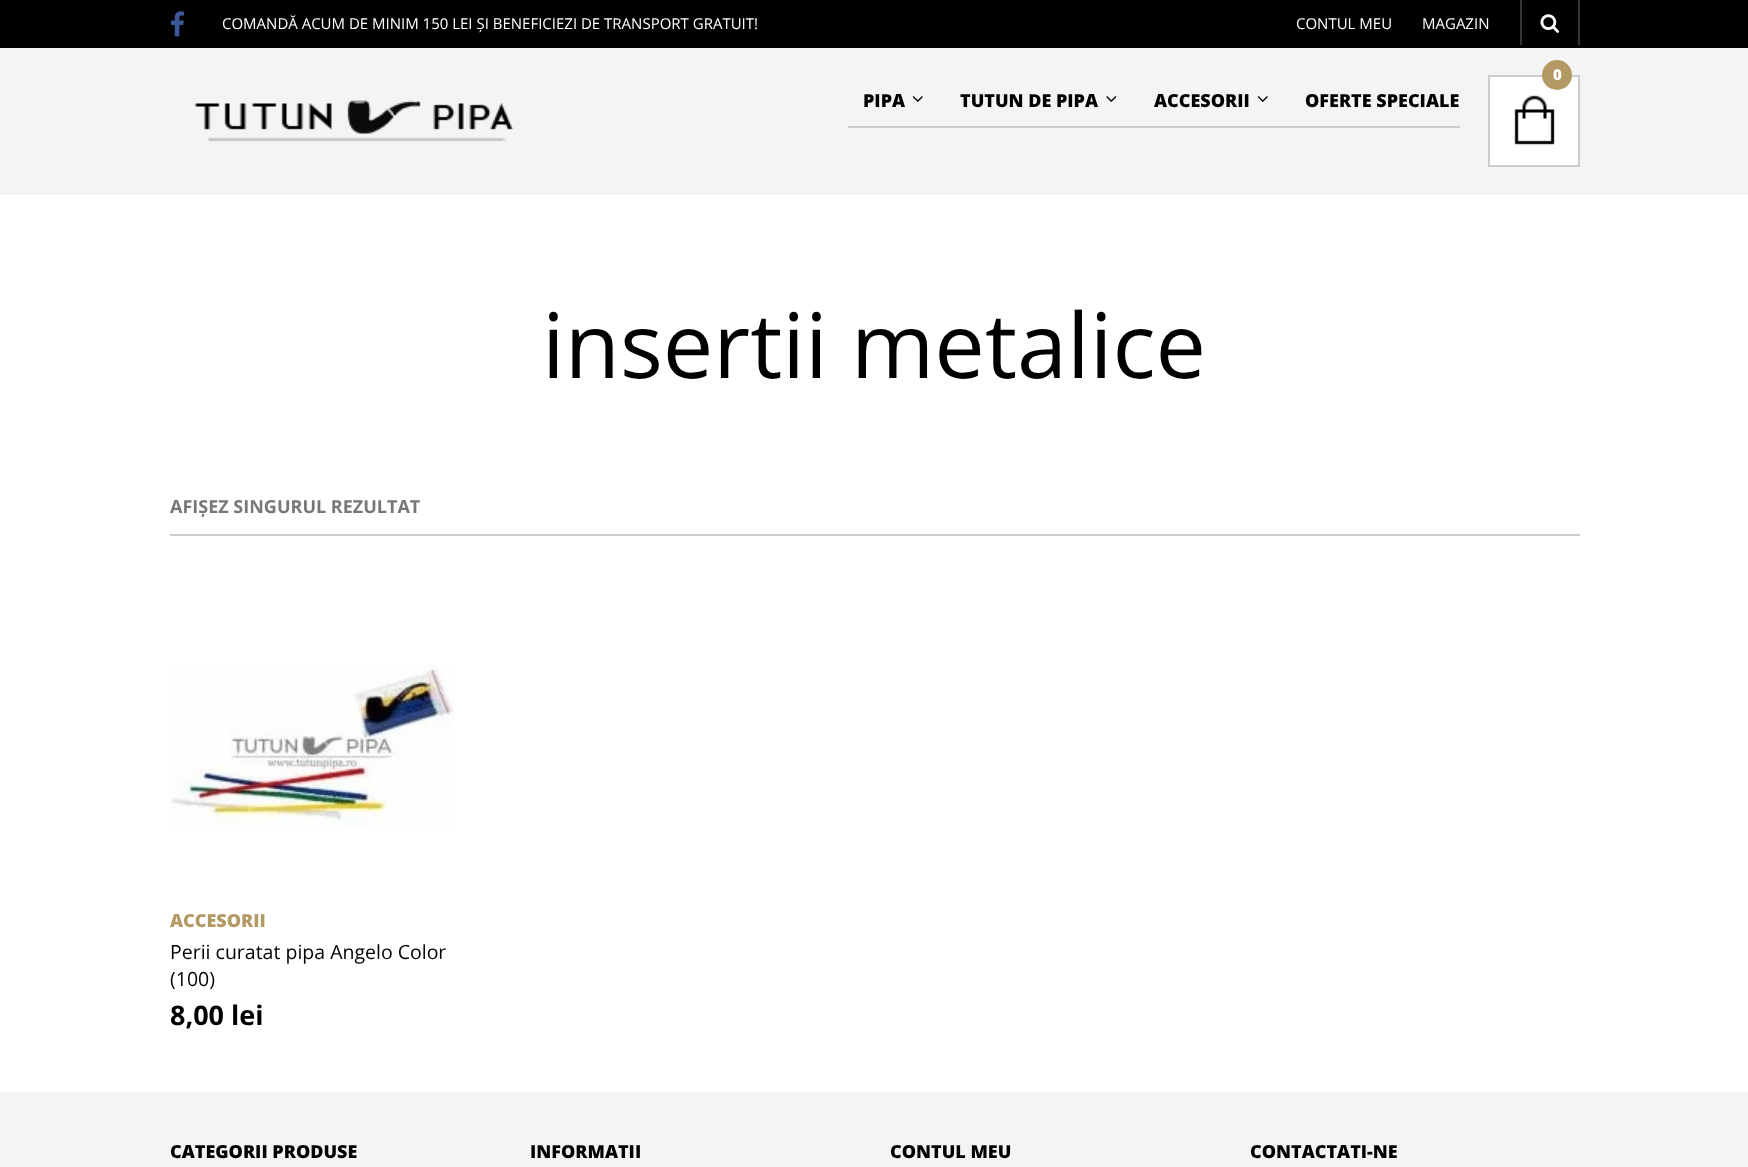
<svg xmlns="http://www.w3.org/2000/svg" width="1748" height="1167">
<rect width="100%" height="100%" fill="#fff"/>
<rect width="1748" height="48" fill="#000"/>
<image x="170" y="11" width="14" height="26" href="media/1.png"/>
<text x="222" y="29" style="font-family:Open Sans;font-size:15px;fill:#fff">COMANDĂ ACUM DE MINIM 150 LEI ȘI BENEFICIEZI DE TRANSPORT GRATUIT!</text>
<text x="1296" y="29" style="font-family:Open Sans;font-size:15px;fill:#fff">CONTUL MEU</text>
<text x="1422" y="29" style="font-family:Open Sans;font-size:15px;fill:#fff">MAGAZIN</text>
<rect x="1578" width="2" height="45" fill="#333"/>
<rect x="1520" width="2" height="45" fill="#333"/>
<image x="1540" y="14" width="20" height="19" href="media/2.png"/>
<rect y="48" width="1748" height="147" fill="#f4f4f4"/>
<rect x="1490" y="77" width="88" height="88" fill="#fff"/>
<image x="1514" y="95" width="41" height="50" href="media/3.png"/>
<rect x="1489" y="76" width="90" height="90" fill="none" stroke="#ccc" stroke-width="2"/>
<circle cx="1557" cy="75" r="15" fill="#b39964"/>
<text x="1553" y="80" style="font-family:Open Sans;font-size:15px;font-weight:800;fill:#fff">0</text>
<rect x="848" y="126" width="612" height="2" fill="#ccc"/>
<text x="863" y="107" style="font-family:Open Sans;font-size:18px;font-weight:800;fill:#000">PIPA</text>
<image x="912" y="96" width="11" height="6" href="media/4.png"/>
<text x="960" y="107" style="font-family:Open Sans;font-size:18px;font-weight:800;fill:#000">TUTUN DE PIPA</text>
<image x="1106" y="96" width="11" height="6" href="media/5.png"/>
<text x="1154" y="107" style="font-family:Open Sans;font-size:18px;font-weight:800;fill:#000">ACCESORII</text>
<image x="1257" y="96" width="11" height="6" href="media/4.png"/>
<text x="1305" y="107" style="font-family:Open Sans;font-size:18px;font-weight:800;fill:#000">OFERTE SPECIALE</text>
<image x="194" y="100" width="320" height="42" href="media/6.png"/>
<text x="542" y="378" style="font-family:Open Sans;font-size:90px;fill:#000">insertii metalice</text>
<text x="170" y="513" style="font-family:Open Sans;font-size:18px;font-weight:bold;fill:#777">AFIȘEZ SINGURUL REZULTAT</text>
<rect x="170" y="534" width="1410" height="2" fill="#ccc"/>
<image x="170" y="664" width="285" height="163" href="media/7.png"/>
<text x="170" y="927" style="font-family:Open Sans;font-size:18px;font-weight:800;fill:#b39964">ACCESORII</text>
<text x="170" y="959" style="font-family:Open Sans;font-size:19.5px;fill:#000">Perii curatat pipa Angelo Color</text>
<text x="170" y="986" style="font-family:Open Sans;font-size:19.5px;fill:#000">(100)</text>
<text x="170" y="1025" style="font-family:Open Sans;font-size:27px;font-weight:bold;fill:#000">8,00 lei</text>
<rect y="1092" width="1748" height="75" fill="#f4f4f4"/>
<text x="170" y="1158" style="font-family:Open Sans;font-size:18px;font-weight:800;fill:#000">CATEGORII PRODUSE</text>
<text x="530" y="1158" style="font-family:Open Sans;font-size:18px;font-weight:800;fill:#000">INFORMATII</text>
<text x="890" y="1158" style="font-family:Open Sans;font-size:18px;font-weight:800;fill:#000">CONTUL MEU</text>
<text x="1250" y="1158" style="font-family:Open Sans;font-size:18px;font-weight:800;fill:#000">CONTACTATI-NE</text>
</svg>
